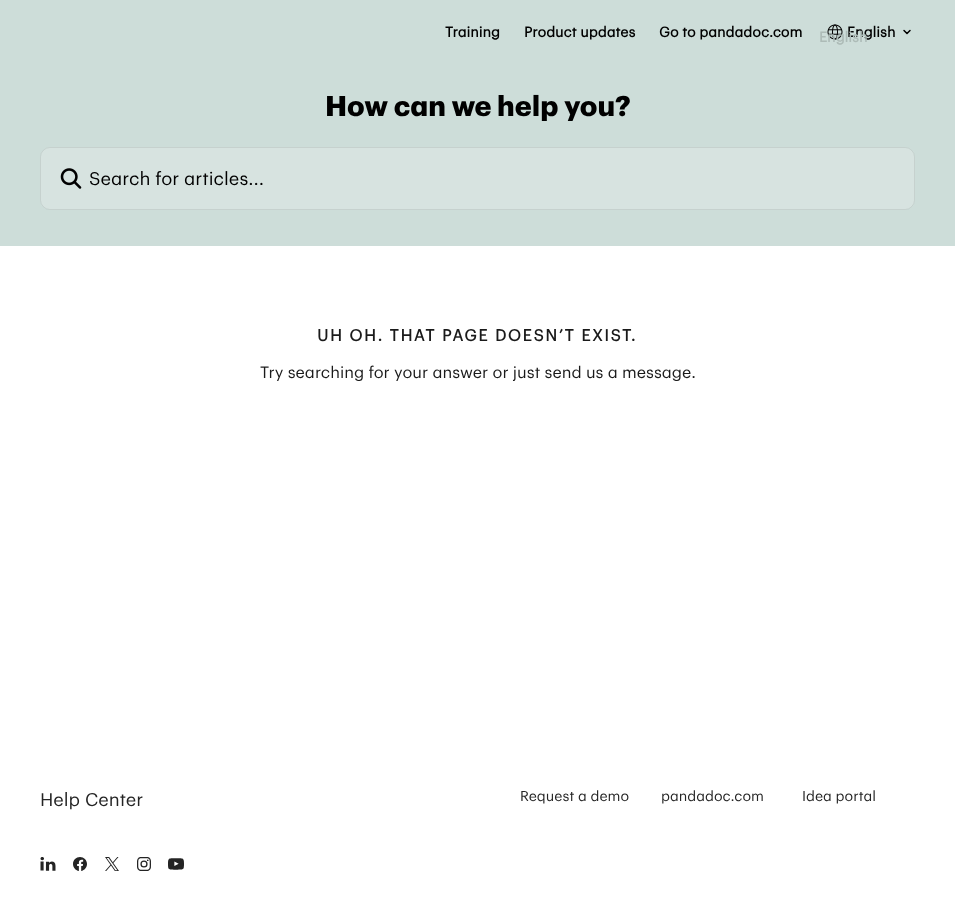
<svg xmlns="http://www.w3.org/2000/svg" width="955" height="924">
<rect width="100%" height="100%" fill="#fff"/>
<rect width="955" height="246" fill="#cdddd9"/>
<text x="445" y="37" style="font-family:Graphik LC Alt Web;font-size:14px;font-weight:bold;fill:#000">Training</text>
<text x="524" y="37" style="font-family:Graphik LC Alt Web;font-size:14px;font-weight:bold;fill:#000">Product updates</text>
<text x="659" y="37" style="font-family:Graphik LC Alt Web;font-size:14px;font-weight:bold;fill:#000">Go to pandadoc.com</text>
<image x="827" y="24" width="16" height="16" href="media/1.png"/>
<text x="847" y="37" style="font-family:Graphik LC Alt Web;font-size:14px;font-weight:bold;fill:#000">English</text>
<text x="819" y="42" style="font-family:Graphik LC Alt Web;font-size:14px;font-weight:bold;fill:#adbbb7">English</text>
<path d="M904 30.5l3 3l3-3" fill="none" stroke="#000" stroke-width="1.5" stroke-linecap="round" stroke-linejoin="round"/>
<text x="325" y="116" style="font-family:'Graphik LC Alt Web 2';font-size:28px;font-weight:bold;fill:#000">How can we help you?</text>
<rect x="40" y="147" width="875" height="63" rx="10" fill="#ffffff33"/>
<rect x="40.5" y="147.5" width="874" height="62" rx="9.5" fill="none" stroke="#00000014"/>
<image x="60" y="168" width="22" height="21" href="media/2.png"/>
<text x="89" y="185" style="font-family:Graphik LC Alt Web;font-size:18px;fill:#000">Search for articles...</text>
<text x="317" y="341" style="font-family:Graphik LC Alt Web;font-size:16px;font-weight:bold;letter-spacing:1.6px;fill:#1a1a1a">UH OH. THAT PAGE DOESN’T EXIST.</text>
<text x="260" y="378" style="font-family:Graphik LC Alt Web;font-size:16px;fill:#1a1a1a">Try searching for your answer or just send us a message.</text>
<text x="40" y="806" style="font-family:Graphik LC Alt Web;font-size:18px;fill:#242424">Help Center</text>
<image x="40" y="857" width="16" height="14" href="media/3.png"/>
<image x="73" y="857" width="14" height="14" href="media/4.png"/>
<image x="105" y="857" width="14" height="14" href="media/5.png"/>
<image x="137" y="857" width="14" height="14" href="media/6.png"/>
<image x="168" y="858" width="16" height="12" href="media/7.png"/>
<text x="520" y="801" style="font-family:Graphik LC Alt Web;font-size:14px;fill:#242424">Request a demo</text>
<text x="661" y="801" style="font-family:Graphik LC Alt Web;font-size:14px;fill:#242424">pandadoc.com</text>
<text x="802" y="801" style="font-family:Graphik LC Alt Web;font-size:14px;fill:#242424">Idea portal</text>
</svg>
